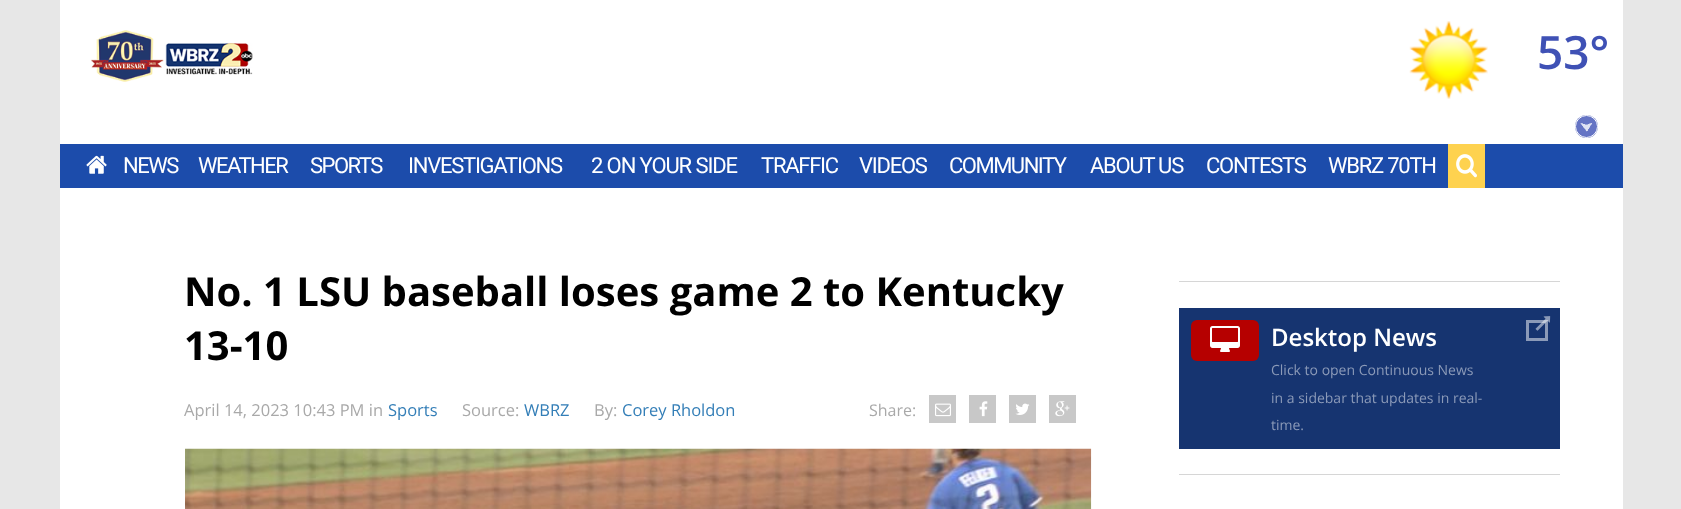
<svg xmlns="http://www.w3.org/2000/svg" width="1681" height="509">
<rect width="100%" height="100%" fill="#e7e7e7"/>
<rect x="60" width="1563" height="509" fill="#fff"/>
<image x="91" y="30" width="162" height="52" href="media/1.png"/>
<image x="1409" y="21" width="79" height="78" href="media/2.png"/>
<text x="1537" y="69" style="font-family:Open Sans;font-size:46px;font-weight:600;fill:#3f51b5">53°</text>
<circle cx="1586.5" cy="126.5" r="11.5" fill="#6574c4"/>
<image x="1580" y="123" width="13" height="9" href="media/3.png"/>
<circle cx="1586.5" cy="126.5" r="11" fill="none" stroke="#fff"/>
<rect x="60" y="144" width="1563" height="44" fill="#1c4cab"/>
<image x="86" y="155" width="21" height="19" href="media/4.png"/>
<text x="123" y="173" style="font-family:Roboto;font-size:22px;letter-spacing:-1.5px;fill:#fff">NEWS</text>
<text x="198" y="173" style="font-family:Roboto;font-size:22px;letter-spacing:-1.5px;fill:#fff">WEATHER</text>
<text x="310" y="173" style="font-family:Roboto;font-size:22px;letter-spacing:-1.5px;fill:#fff">SPORTS</text>
<text x="408" y="173" style="font-family:Roboto;font-size:22px;letter-spacing:-1.25px;fill:#fff">INVESTIGATIONS</text>
<text x="591" y="173" style="font-family:Roboto;font-size:22px;letter-spacing:-1.1px;fill:#fff">2 ON YOUR SIDE</text>
<text x="761" y="173" style="font-family:Roboto;font-size:22px;letter-spacing:-1.25px;fill:#fff">TRAFFIC</text>
<text x="859" y="173" style="font-family:Roboto;font-size:22px;letter-spacing:-1.25px;fill:#fff">VIDEOS</text>
<text x="949" y="173" style="font-family:Roboto;font-size:22px;letter-spacing:-1.5px;fill:#fff">COMMUNITY</text>
<text x="1090" y="173" style="font-family:Roboto;font-size:22px;letter-spacing:-1.25px;fill:#fff">ABOUT US</text>
<text x="1206" y="173" style="font-family:Roboto;font-size:22px;letter-spacing:-1.25px;fill:#fff">CONTESTS</text>
<text x="1328" y="173" style="font-family:Roboto;font-size:22px;letter-spacing:-1.25px;fill:#fff">WBRZ 70TH</text>
<rect x="1448" y="144" width="37" height="44" fill="#fed24f"/>
<image x="1456" y="154" width="21" height="24" href="media/5.png"/>
<text x="184" y="306" style="font-family:Open Sans;font-size:40px;font-weight:bold;fill:#000">No. 1 LSU baseball loses game 2 to Kentucky</text>
<text x="184" y="360" style="font-family:Open Sans;font-size:40px;font-weight:bold;fill:#000">13-10</text>
<text x="184" y="416" style="font-family:Open Sans;font-size:16.5px;fill:#a9a9a9">April 14, 2023 10:43 PM in</text>
<text x="388" y="416" style="font-family:Open Sans;font-size:16.5px;fill:#337eb7">Sports</text>
<text x="462" y="416" style="font-family:Open Sans;font-size:16.5px;fill:#a9a9a9">Source:</text>
<text x="524" y="416" style="font-family:Open Sans;font-size:16.5px;fill:#337eb7">WBRZ</text>
<text x="594" y="416" style="font-family:Open Sans;font-size:16.5px;fill:#a9a9a9">By:</text>
<text x="622" y="416" style="font-family:Open Sans;font-size:16.5px;fill:#337eb7">Corey Rholdon</text>
<text x="869" y="416" style="font-family:Open Sans;font-size:16px;fill:#a9a9a9">Share:</text>
<rect x="929" y="395" width="27" height="28" fill="#c8c8c8"/>
<image x="935" y="403" width="16" height="14" href="media/6.png"/>
<rect x="969" y="395" width="27" height="28" fill="#c8c8c8"/>
<image x="979" y="401" width="9" height="16" href="media/7.png"/>
<rect x="1009" y="395" width="27" height="28" fill="#c8c8c8"/>
<image x="1015" y="403" width="15" height="12" href="media/8.png"/>
<rect x="1049" y="395" width="27" height="28" fill="#c8c8c8"/>
<image x="1055" y="401" width="15" height="16" href="media/9.png"/>
<image x="185" y="448" width="907" height="61" href="media/10.png"/>
<rect x="1179" y="281" width="381" height="1" fill="#d6d6d6"/>
<rect x="1179" y="474" width="381" height="1" fill="#d6d6d6"/>
<rect x="1179" y="308" width="381" height="141" fill="#163470"/>
<rect x="1191" y="320" width="68" height="41" rx="6" fill="#b60000"/>
<image x="1210" y="326" width="30" height="26" href="media/11.png"/>
<text x="1271" y="346" style="font-family:Open Sans;font-size:24px;font-weight:600;fill:#fff">Desktop News</text>
<text x="1271" y="375" style="font-family:Open Sans;font-size:14px;fill:#8b9ab8">Click to open Continuous News</text>
<text x="1271" y="403" style="font-family:Open Sans;font-size:14px;fill:#8b9ab8">in a sidebar that updates in real-</text>
<text x="1271" y="430" style="font-family:Open Sans;font-size:14px;fill:#8b9ab8">time.</text>
<rect x="1527.5" y="321.5" width="19" height="18" fill="none" stroke="#8b9ab8" stroke-width="3"/>
<image x="1535" y="316" width="16" height="15" href="media/12.png"/>
</svg>
